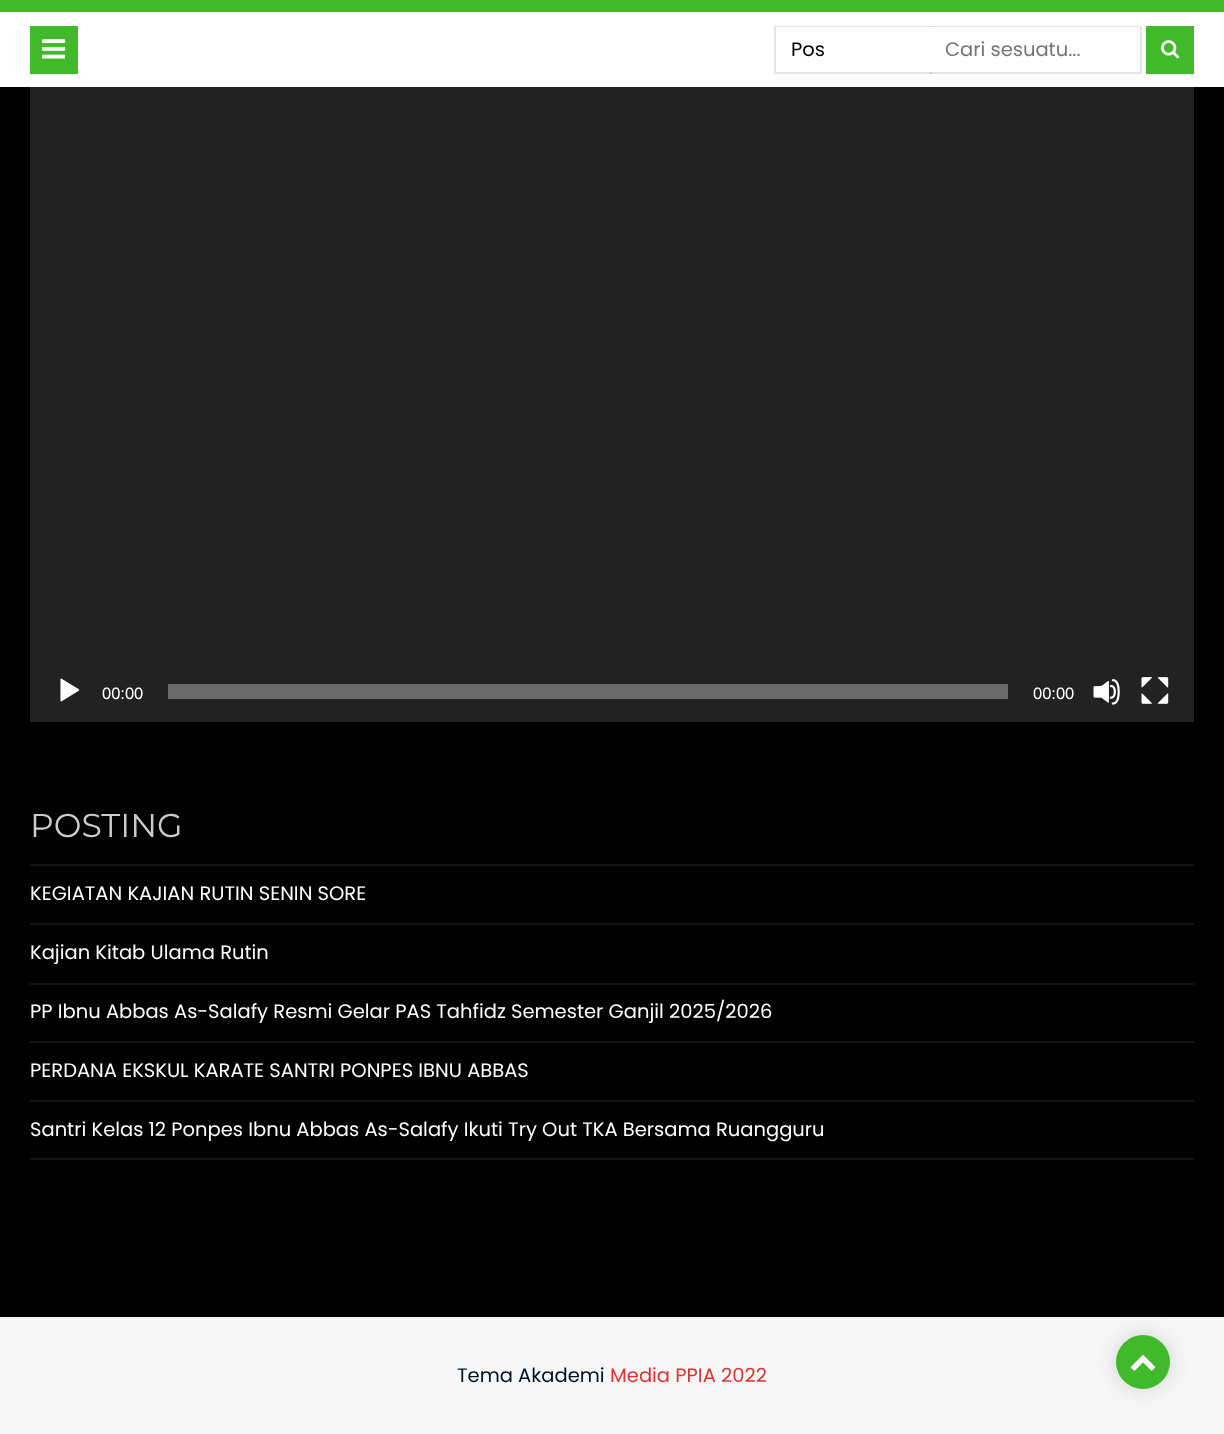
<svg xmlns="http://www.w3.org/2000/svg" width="1224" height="1434">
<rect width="100%" height="100%" fill="#000"/>
<rect y="12" width="1224" height="75" fill="#fff"/>
<rect width="1224" height="12" fill="#40ba2a"/>
<rect x="30" y="26" width="48" height="48" fill="#40ba2a"/>
<image x="42" y="39" width="24" height="20" href="media/1.png"/>
<path d="M930 26h212l-2 1h-210z" fill="#e6e6e6"/>
<path d="M774 26h158v1h-156z" fill="#0000001a"/>
<path d="M1142 26v48l-2-2v-45z" fill="#0000001a"/>
<path d="M1142 74h-212v-2h210z" fill="#0000001a"/>
<path d="M932 74h-158l2-2h156z" fill="#0000001a"/>
<path d="M774 74v-48l2 1v45z" fill="#0000001a"/>
<text x="791" y="56" style="font-family:Poppins;font-size:19.5px;fill:#000">Pos</text>
<text x="945" y="56" style="font-family:Poppins;font-size:19.5px;fill:#757575">Cari sesuatu...</text>
<rect x="1146" y="26" width="48" height="48" fill="#40ba2a"/>
<image x="1161" y="40" width="19" height="19" href="media/2.png"/>
<rect x="30" y="87" width="1164" height="635" fill="#222"/>
<image x="60" y="678" width="20" height="24" href="media/3.png"/>
<text x="102" y="699" style="font-family:Liberation Sans;font-size:16.5px;fill:#fff">00:00</text>
<rect x="168" y="684" width="840" height="15" fill="#6b6b6b"/>
<text x="1033" y="699" style="font-family:Liberation Sans;font-size:16.5px;fill:#fff">00:00</text>
<image x="1093" y="679" width="27" height="26" href="media/4.png"/>
<image x="1141" y="677" width="28" height="27" href="media/5.png"/>
<rect x="30" y="864" width="1164" height="2" fill="#131313"/>
<text x="30" y="837" style="font-family:Montserrat;font-size:33px;fill:#ccc">POSTING</text>
<rect x="30" y="923" width="1164" height="2" fill="#131313"/>
<text x="30" y="900" style="font-family:Poppins;font-size:19.5px;fill:#fff">KEGIATAN KAJIAN RUTIN SENIN SORE</text>
<rect x="30" y="983" width="1164" height="2" fill="#131313"/>
<text x="30" y="959" style="font-family:Poppins;font-size:19.5px;fill:#fff">Kajian Kitab Ulama Rutin</text>
<rect x="30" y="1041" width="1164" height="2" fill="#131313"/>
<text x="30" y="1018" style="font-family:Poppins;font-size:19.5px;fill:#fff">PP Ibnu Abbas As-Salafy Resmi Gelar PAS Tahfidz Semester Ganjil 2025/2026</text>
<rect x="30" y="1100" width="1164" height="2" fill="#131313"/>
<text x="30" y="1077" style="font-family:Poppins;font-size:19.5px;fill:#fff">PERDANA EKSKUL KARATE SANTRI PONPES IBNU ABBAS</text>
<rect x="30" y="1158" width="1164" height="2" fill="#131313"/>
<text x="30" y="1136" style="font-family:Poppins;font-size:19.5px;fill:#fff">Santri Kelas 12 Ponpes Ibnu Abbas As-Salafy Ikuti Try Out TKA Bersama Ruangguru</text>
<rect y="1317" width="1224" height="117" fill="#f7f7f7"/>
<text x="457" y="1382" style="font-family:Poppins;font-size:19.5px;fill:#012">Tema Akademi</text>
<text x="610" y="1382" style="font-family:Poppins;font-size:19.5px;fill:#d33">Media PPIA 2022</text>
<rect x="1116" y="1335" width="54" height="54" rx="27" fill="#00000026" filter="blur(11px)"/>
<circle cx="1143" cy="1362" r="27" fill="#40ba2a"/>
<image x="1130" y="1355" width="26" height="16" href="media/6.png"/>
</svg>
